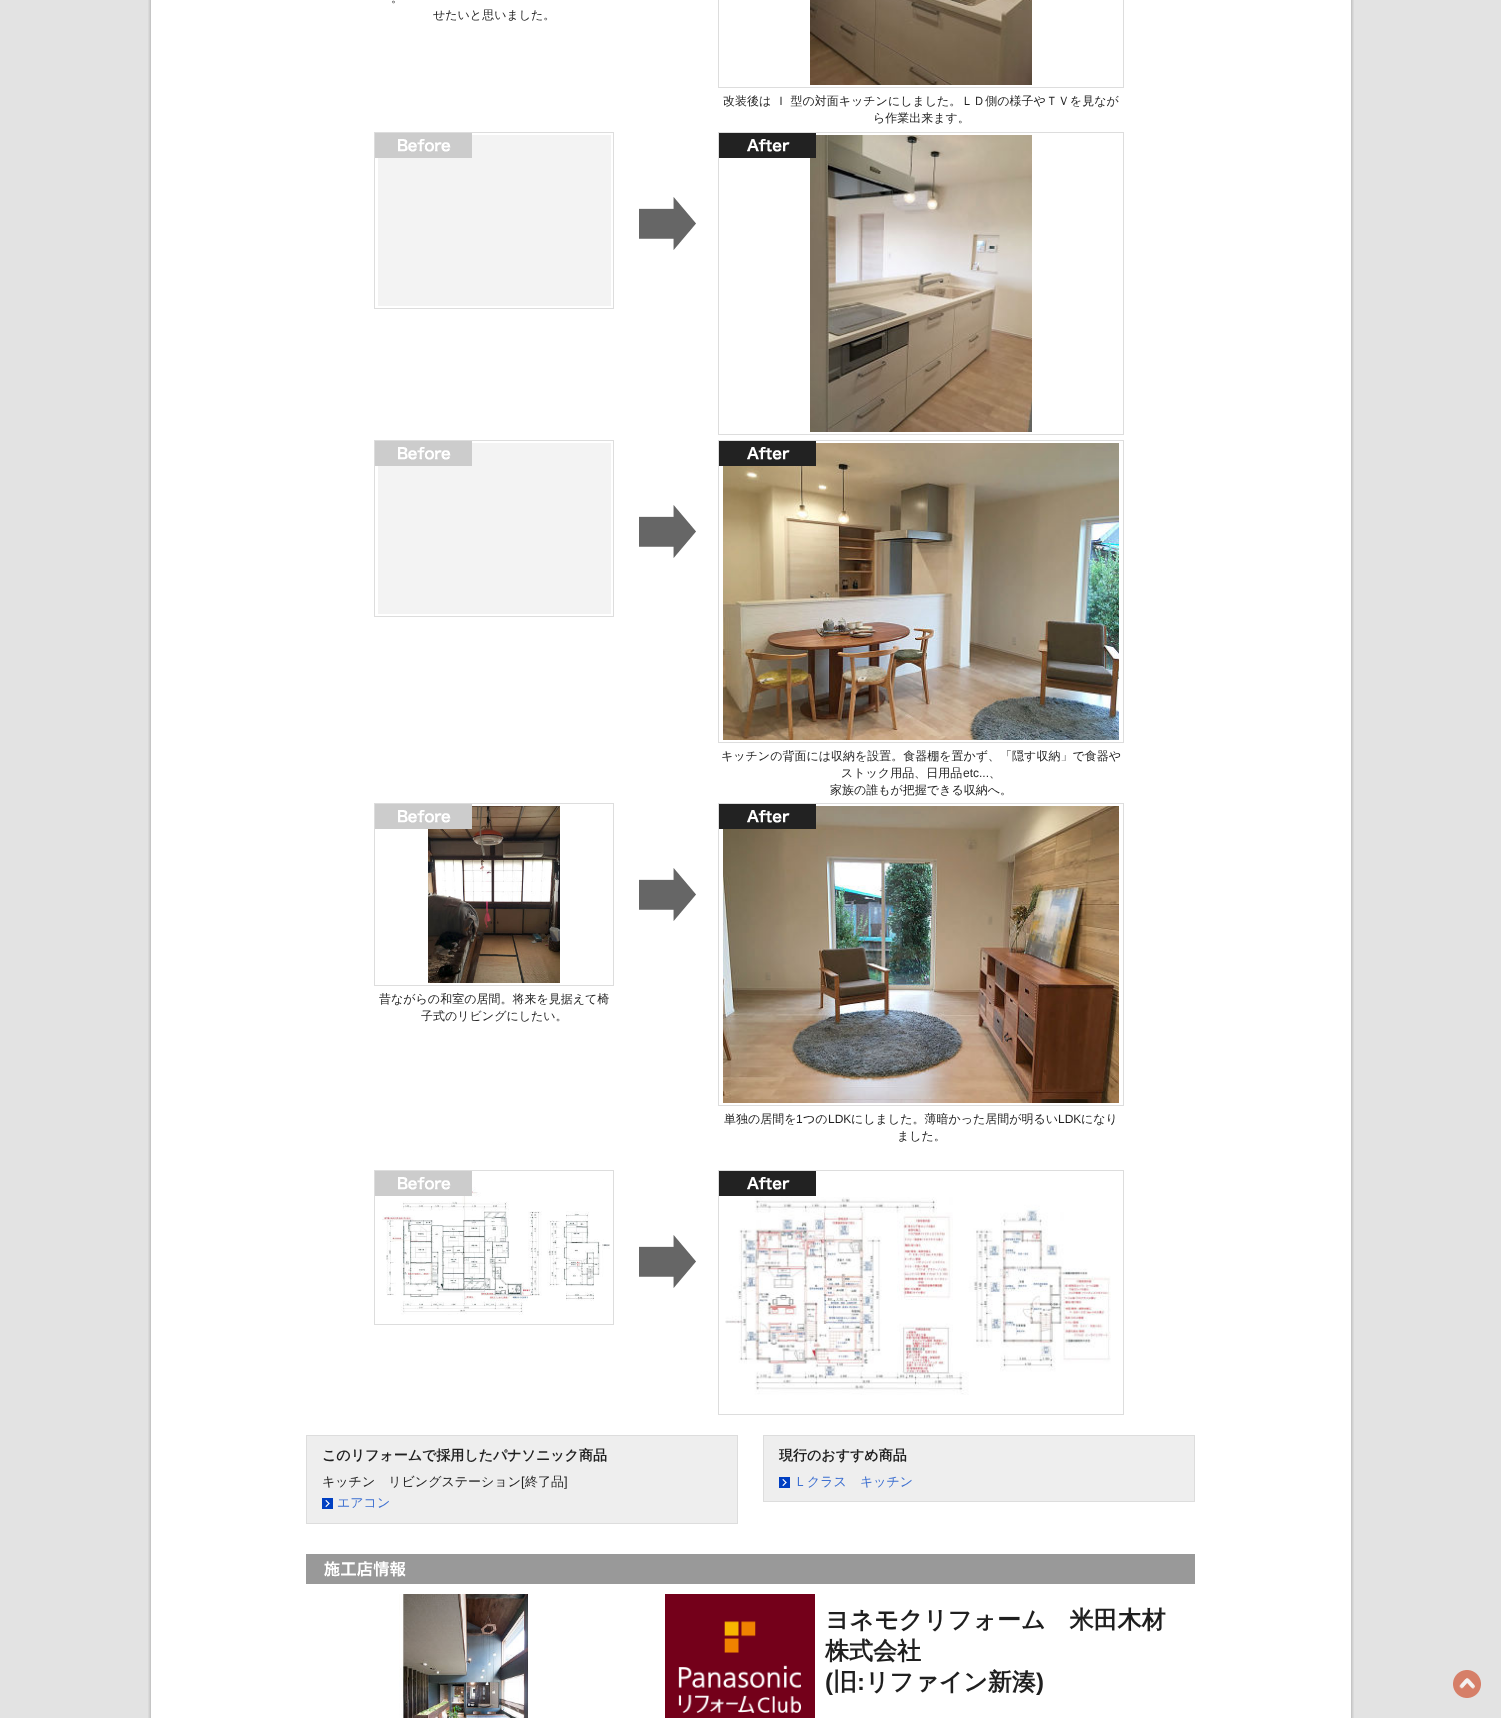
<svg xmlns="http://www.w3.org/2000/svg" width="1501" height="1718">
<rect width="100%" height="100%" fill="#e3e3e3"/>
<image x="148" y="0" width="1206" height="1718" href="media/1.png"/>
<rect x="151" width="1200" height="1718" fill="#fff"/>
<text x="391" y="2" style="font-family:WenQuanYi Zen Hei;font-size:12px;font-weight:500;fill:#1f1f1f">。</text>
<text x="433" y="19" style="font-family:WenQuanYi Zen Hei;font-size:12px;font-weight:500;fill:#1f1f1f">せたいと思いました。</text>
<rect x="718.5" y="-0.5" width="405" height="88" fill="none" stroke="#ddd"/>
<image x="810" y="0" width="222" height="85" href="media/2.png"/>
<text x="723" y="105" style="font-family:WenQuanYi Zen Hei;font-size:12px;font-weight:500;fill:#1f1f1f">改装後は Ｉ 型の対面キッチンにしました。ＬＤ側の様子やＴＶを見なが</text>
<text x="873" y="122" style="font-family:WenQuanYi Zen Hei;font-size:12px;font-weight:500;fill:#1f1f1f">ら作業出来ます。</text>
<rect x="374.5" y="132.5" width="239" height="176" fill="none" stroke="#ddd"/>
<rect x="378" y="135" width="233" height="171" fill="#f3f3f3"/>
<image x="375" y="133" width="97" height="25" href="media/3.png"/>
<image x="639" y="197" width="57" height="53" href="media/4.png"/>
<rect x="718.5" y="132.5" width="405" height="302" fill="none" stroke="#ddd"/>
<image x="810" y="135" width="222" height="297" href="media/6.png"/>
<image x="719" y="133" width="97" height="25" href="media/5.png"/>
<rect x="374.5" y="440.5" width="239" height="176" fill="none" stroke="#ddd"/>
<rect x="378" y="443" width="233" height="171" fill="#f3f3f3"/>
<image x="375" y="441" width="97" height="25" href="media/3.png"/>
<image x="639" y="505" width="57" height="53" href="media/4.png"/>
<rect x="718.5" y="440.5" width="405" height="302" fill="none" stroke="#ddd"/>
<image x="723" y="443" width="396" height="297" href="media/7.png"/>
<image x="719" y="441" width="97" height="25" href="media/5.png"/>
<text x="721" y="760" style="font-family:WenQuanYi Zen Hei;font-size:12px;font-weight:500;fill:#1f1f1f">キッチンの背面には収納を設置。食器棚を置かず、「隠す収納」で食器や</text>
<text x="841" y="777" style="font-family:WenQuanYi Zen Hei;font-size:12px;font-weight:500;fill:#1f1f1f">ストック用品、日用品</text>
<text x="963" y="777" style="font-family:Liberation Sans;font-size:12px;fill:#1f1f1f">etc...</text>
<text x="989" y="777" style="font-family:WenQuanYi Zen Hei;font-size:12px;font-weight:500;fill:#1f1f1f">、</text>
<text x="830" y="794" style="font-family:WenQuanYi Zen Hei;font-size:12px;font-weight:500;fill:#1f1f1f">家族の誰もが把握できる収納へ。</text>
<image x="639" y="868" width="57" height="53" href="media/4.png"/>
<rect x="374.5" y="803.5" width="239" height="182" fill="none" stroke="#ddd"/>
<image x="428" y="806" width="132" height="177" href="media/8.png"/>
<image x="375" y="804" width="97" height="25" href="media/3.png"/>
<text x="379" y="1003" style="font-family:WenQuanYi Zen Hei;font-size:12px;font-weight:500;fill:#1f1f1f">昔ながらの和室の居間。将来を見据えて椅</text>
<text x="421" y="1020" style="font-family:WenQuanYi Zen Hei;font-size:12px;font-weight:500;fill:#1f1f1f">子式のリビングにしたい。</text>
<rect x="718.5" y="803.5" width="405" height="302" fill="none" stroke="#ddd"/>
<image x="723" y="806" width="396" height="297" href="media/9.png"/>
<image x="719" y="804" width="97" height="25" href="media/5.png"/>
<text x="724" y="1123" style="font-family:WenQuanYi Zen Hei;font-size:12px;font-weight:500;fill:#1f1f1f">単独の居間を</text>
<text x="796" y="1123" style="font-family:Liberation Sans;font-size:12px;fill:#1f1f1f">1</text>
<text x="803" y="1123" style="font-family:WenQuanYi Zen Hei;font-size:12px;font-weight:500;fill:#1f1f1f">つの</text>
<text x="828" y="1123" style="font-family:Liberation Sans;font-size:12px;fill:#1f1f1f">LDK</text>
<text x="851" y="1123" style="font-family:WenQuanYi Zen Hei;font-size:12px;font-weight:500;fill:#1f1f1f">にしました。薄暗かった居間が明るい</text>
<text x="1058" y="1123" style="font-family:Liberation Sans;font-size:12px;fill:#1f1f1f">LDK</text>
<text x="1081" y="1123" style="font-family:WenQuanYi Zen Hei;font-size:12px;font-weight:500;fill:#1f1f1f">になり</text>
<text x="897" y="1140" style="font-family:WenQuanYi Zen Hei;font-size:12px;font-weight:500;fill:#1f1f1f">ました。</text>
<rect x="374.5" y="1170.5" width="239" height="154" fill="none" stroke="#ddd"/>
<image x="382" y="1185" width="228" height="130" href="media/10.png"/>
<image x="375" y="1171" width="97" height="25" href="media/3.png"/>
<image x="639" y="1235" width="57" height="53" href="media/4.png"/>
<rect x="718.5" y="1170.5" width="405" height="244" fill="none" stroke="#ddd"/>
<image x="719" y="1171" width="97" height="25" href="media/5.png"/>
<image x="725" y="1197" width="386" height="198" href="media/11.png"/>
<rect x="306.5" y="1435.5" width="431" height="88" fill="#eee" stroke="#ddd"/>
<text x="322" y="1460" style="font-family:WenQuanYi Zen Hei;font-size:14px;font-weight:bold;fill:#1f1f1f">このリフォームで採用したパナソニック商品</text>
<text x="322" y="1486" style="font-family:WenQuanYi Zen Hei;font-size:13px;font-weight:500;fill:#1f1f1f">キッチン　リビングステーション</text>
<text x="521" y="1486" style="font-family:Liberation Sans;font-size:13px;fill:#1f1f1f">[</text>
<text x="525" y="1486" style="font-family:WenQuanYi Zen Hei;font-size:13px;font-weight:500;fill:#1f1f1f">終了品</text>
<text x="564" y="1486" style="font-family:Liberation Sans;font-size:13px;fill:#1f1f1f">]</text>
<image x="322" y="1498" width="11" height="11" href="media/12.png"/>
<text x="337" y="1507" style="font-family:WenQuanYi Zen Hei;font-size:13px;font-weight:500;fill:#3e70d1">エアコン</text>
<rect x="763.5" y="1435.5" width="431" height="66" fill="#eee" stroke="#ddd"/>
<text x="779" y="1460" style="font-family:WenQuanYi Zen Hei;font-size:14px;font-weight:bold;fill:#1f1f1f">現行のおすすめ商品</text>
<image x="779" y="1477" width="11" height="11" href="media/12.png"/>
<text x="794" y="1486" style="font-family:WenQuanYi Zen Hei;font-size:13px;font-weight:500;fill:#3e70d1">Ｌクラス　キッチン</text>
<image x="306" y="1554" width="889" height="30" href="media/13.png"/>
<image x="399" y="1594" width="130" height="124" href="media/14.png"/>
<image x="665" y="1594" width="150" height="124" href="media/15.png"/>
<text x="825" y="1628" style="font-family:WenQuanYi Zen Hei;font-size:24px;font-weight:bold;fill:#1f1f1f">ヨネモクリフォーム　米田木材</text>
<text x="825" y="1659" style="font-family:WenQuanYi Zen Hei;font-size:24px;font-weight:bold;fill:#1f1f1f">株式会社</text>
<text x="825" y="1690" style="font-family:Liberation Sans;font-size:24px;font-weight:bold;fill:#1f1f1f">(</text>
<text x="833" y="1690" style="font-family:WenQuanYi Zen Hei;font-size:24px;font-weight:bold;fill:#1f1f1f">旧</text>
<text x="857" y="1690" style="font-family:Liberation Sans;font-size:24px;font-weight:bold;fill:#1f1f1f">:</text>
<text x="865" y="1690" style="font-family:WenQuanYi Zen Hei;font-size:24px;font-weight:bold;fill:#1f1f1f">リファイン新湊</text>
<text x="1036" y="1690" style="font-family:Liberation Sans;font-size:24px;font-weight:bold;fill:#1f1f1f">)</text>
<image x="1453" y="1670" width="28" height="28" href="media/16.png"/>
</svg>
